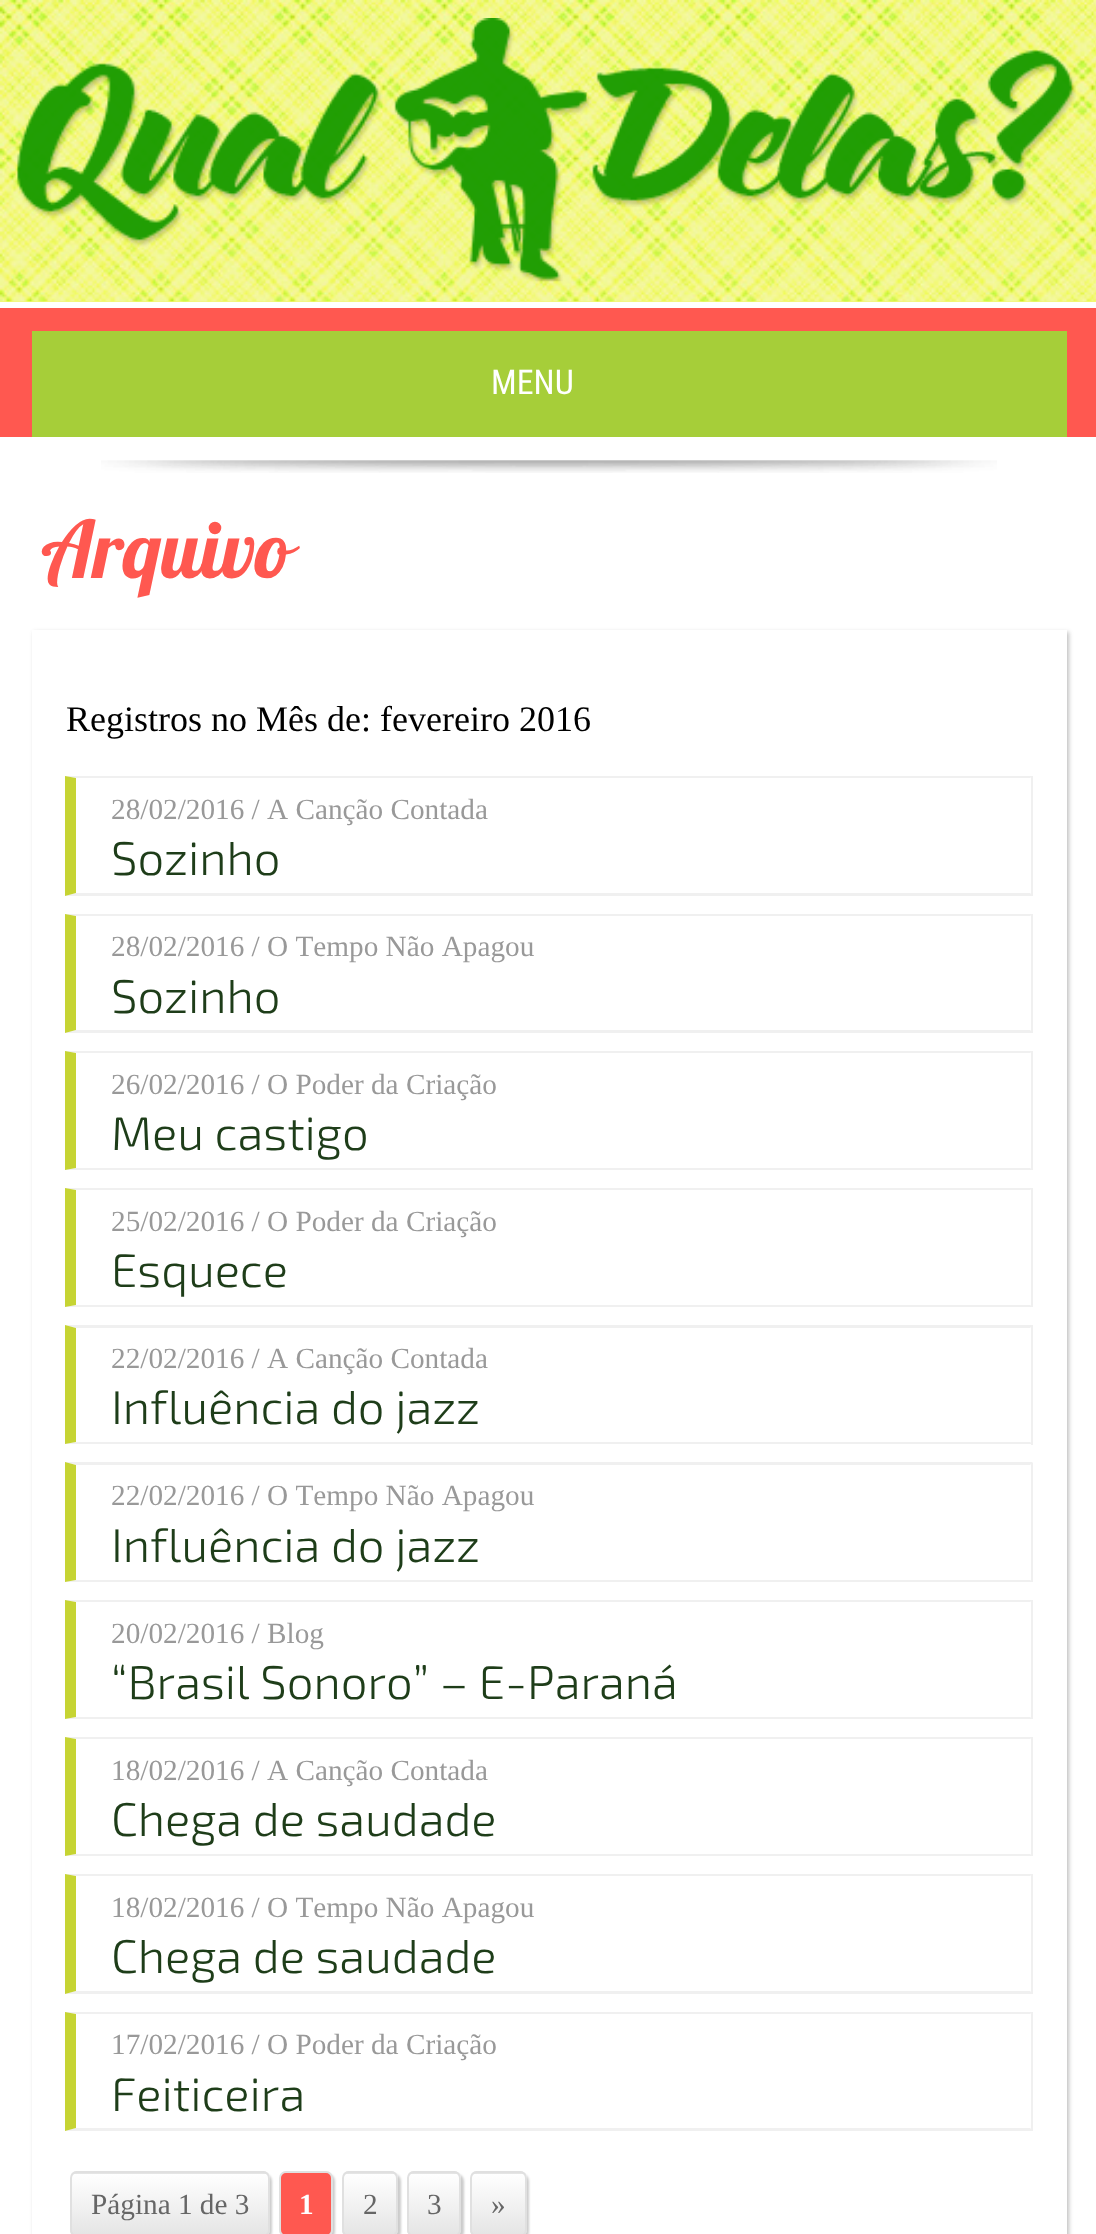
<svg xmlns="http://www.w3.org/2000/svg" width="1096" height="2234">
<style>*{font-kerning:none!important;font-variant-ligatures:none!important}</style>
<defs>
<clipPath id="clip1"><rect x="70" y="2171" width="200" height="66" rx="7"/></clipPath>
<linearGradient id="g1" gradientUnits="userSpaceOnUse" x1="170" y1="2174" x2="170" y2="2234"><stop offset="0" stop-color="#fff"/><stop offset="1" stop-color="#e5e5e5"/></linearGradient>
<linearGradient id="g2" gradientUnits="userSpaceOnUse" x1="170" y1="2113" x2="170" y2="2174"><stop offset="0" stop-color="#fff"/><stop offset="1" stop-color="#e5e5e5"/></linearGradient>
<clipPath id="clip2"><rect x="342" y="2171" width="56" height="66" rx="7"/></clipPath>
<linearGradient id="g3" gradientUnits="userSpaceOnUse" x1="370" y1="2174" x2="370" y2="2234"><stop offset="0" stop-color="#fff"/><stop offset="1" stop-color="#e5e5e5"/></linearGradient>
<linearGradient id="g4" gradientUnits="userSpaceOnUse" x1="370" y1="2113" x2="370" y2="2174"><stop offset="0" stop-color="#fff"/><stop offset="1" stop-color="#e5e5e5"/></linearGradient>
<clipPath id="clip3"><rect x="407" y="2171" width="54" height="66" rx="7"/></clipPath>
<linearGradient id="g5" gradientUnits="userSpaceOnUse" x1="434" y1="2174" x2="434" y2="2234"><stop offset="0" stop-color="#fff"/><stop offset="1" stop-color="#e5e5e5"/></linearGradient>
<linearGradient id="g6" gradientUnits="userSpaceOnUse" x1="434" y1="2113" x2="434" y2="2174"><stop offset="0" stop-color="#fff"/><stop offset="1" stop-color="#e5e5e5"/></linearGradient>
<clipPath id="clip4"><rect x="470" y="2171" width="57" height="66" rx="7"/></clipPath>
<linearGradient id="g7" gradientUnits="userSpaceOnUse" x1="498" y1="2174" x2="498" y2="2234"><stop offset="0" stop-color="#fff"/><stop offset="1" stop-color="#e5e5e5"/></linearGradient>
<linearGradient id="g8" gradientUnits="userSpaceOnUse" x1="498" y1="2113" x2="498" y2="2174"><stop offset="0" stop-color="#fff"/><stop offset="1" stop-color="#e5e5e5"/></linearGradient>
</defs>
<rect width="100%" height="100%" fill="#fff"/>
<rect y="301" width="1096" height="1" fill="#f3f875"/>
<image x="0" y="0" width="1096" height="302" href="media/1.png"/>
<image x="17" y="18" width="1059" height="264" href="media/2.png"/>
<rect y="308" width="1096" height="129" fill="#ff5850"/>
<rect x="32" y="331" width="1035" height="106" fill="#a6ce39"/>
<text x="491" y="394" style="font-family:Roboto Condensed;font-size:34px;fill:#fff">MENU</text>
<image x="101" y="460" width="896" height="13" href="media/3.png"/>
<text x="41" y="578" style="font-family:Lobster;font-size:79px;fill:#ff5850">Arquivo</text>
<rect x="34" y="632" width="1035" height="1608" fill="#3232324d" filter="blur(2px)"/>
<rect x="32" y="630" width="1035" height="1604" fill="#fff"/>
<text x="66" y="731" style="font-family:Liberation Serif;font-size:36px;fill:#000">Registros no Mês de: fevereiro 2016</text>
<path d="M65 776h968l-3 2h-954z" fill="#f0f0f0"/>
<rect x="1031" y="776" width="2" height="120" fill="#f0f0f0"/>
<path d="M1033 896h-968l11-3h954z" fill="#f0f0f0"/>
<path d="M65 896v-120l11 2v115z" fill="#c6d433"/>
<text x="111" y="819" style="font-family:Liberation Serif;font-size:29.25px;fill:#999">28/02/2016 / A Canção Contada</text>
<text x="111" y="875" style="font-family:'Exo 2';font-size:47.25px;font-weight:300;fill:#1e3d19">Sozinho</text>
<path d="M65 914h968l-3 2h-954z" fill="#f0f0f0"/>
<rect x="1031" y="914" width="2" height="119" fill="#f0f0f0"/>
<path d="M1033 1033h-968l11-3h954z" fill="#f0f0f0"/>
<path d="M65 1033v-119l11 2v114z" fill="#c6d433"/>
<text x="111" y="956" style="font-family:Liberation Serif;font-size:29.25px;fill:#999">28/02/2016 / O Tempo Não Apagou</text>
<text x="111" y="1013" style="font-family:'Exo 2';font-size:47.25px;font-weight:300;fill:#1e3d19">Sozinho</text>
<path d="M65 1051h968l-3 2h-954z" fill="#f0f0f0"/>
<rect x="1031" y="1051" width="2" height="119" fill="#f0f0f0"/>
<path d="M1033 1170h-968l11-2h954z" fill="#f0f0f0"/>
<path d="M65 1170v-119l11 2v115z" fill="#c6d433"/>
<text x="111" y="1094" style="font-family:Liberation Serif;font-size:29.25px;fill:#999">26/02/2016 / O Poder da Criação</text>
<text x="111" y="1150" style="font-family:'Exo 2';font-size:47.25px;font-weight:300;fill:#1e3d19">Meu castigo</text>
<path d="M65 1188h968l-3 2h-954z" fill="#f0f0f0"/>
<rect x="1031" y="1188" width="2" height="119" fill="#f0f0f0"/>
<path d="M1033 1307h-968l11-2h954z" fill="#f0f0f0"/>
<path d="M65 1307v-119l11 2v115z" fill="#c6d433"/>
<text x="111" y="1231" style="font-family:Liberation Serif;font-size:29.25px;fill:#999">25/02/2016 / O Poder da Criação</text>
<text x="111" y="1287" style="font-family:'Exo 2';font-size:47.25px;font-weight:300;fill:#1e3d19">Esquece</text>
<path d="M65 1325h968l-3 3h-954z" fill="#f0f0f0"/>
<rect x="1031" y="1325" width="2" height="120" fill="#f0f0f0"/>
<path d="M1033 1444h-968l11-2h954z" fill="#f0f0f0"/>
<path d="M65 1444v-119l11 3v114z" fill="#c6d433"/>
<text x="111" y="1368" style="font-family:Liberation Serif;font-size:29.25px;fill:#999">22/02/2016 / A Canção Contada</text>
<text x="111" y="1424" style="font-family:'Exo 2';font-size:47.25px;font-weight:300;fill:#1e3d19">Influência do jazz</text>
<path d="M65 1462h968l-3 3h-954z" fill="#f0f0f0"/>
<rect x="1031" y="1463" width="2" height="119" fill="#f0f0f0"/>
<path d="M1033 1582h-968l11-2h954z" fill="#f0f0f0"/>
<path d="M65 1582v-120l11 3v115z" fill="#c6d433"/>
<text x="111" y="1505" style="font-family:Liberation Serif;font-size:29.25px;fill:#999">22/02/2016 / O Tempo Não Apagou</text>
<text x="111" y="1562" style="font-family:'Exo 2';font-size:47.25px;font-weight:300;fill:#1e3d19">Influência do jazz</text>
<path d="M65 1600h968l-3 2h-954z" fill="#f0f0f0"/>
<rect x="1031" y="1600" width="2" height="119" fill="#f0f0f0"/>
<path d="M1033 1719h-968l11-2h954z" fill="#f0f0f0"/>
<path d="M65 1719v-119l11 2v115z" fill="#c6d433"/>
<text x="111" y="1643" style="font-family:Liberation Serif;font-size:29.25px;fill:#999">20/02/2016 / Blog</text>
<text x="111" y="1699" style="font-family:'Exo 2';font-size:47.25px;font-weight:300;fill:#1e3d19">“Brasil Sonoro” – E-Paraná</text>
<path d="M65 1737h968l-3 2h-954z" fill="#f0f0f0"/>
<rect x="1031" y="1737" width="2" height="119" fill="#f0f0f0"/>
<path d="M1033 1856h-968l11-2h954z" fill="#f0f0f0"/>
<path d="M65 1856v-119l11 2v115z" fill="#c6d433"/>
<text x="111" y="1780" style="font-family:Liberation Serif;font-size:29.25px;fill:#999">18/02/2016 / A Canção Contada</text>
<text x="111" y="1836" style="font-family:'Exo 2';font-size:47.25px;font-weight:300;fill:#1e3d19">Chega de saudade</text>
<path d="M65 1874h968l-3 2h-954z" fill="#f0f0f0"/>
<rect x="1031" y="1874" width="2" height="120" fill="#f0f0f0"/>
<path d="M1033 1994h-968l11-3h954z" fill="#f0f0f0"/>
<path d="M65 1994v-120l11 2v115z" fill="#c6d433"/>
<text x="111" y="1917" style="font-family:Liberation Serif;font-size:29.25px;fill:#999">18/02/2016 / O Tempo Não Apagou</text>
<text x="111" y="1973" style="font-family:'Exo 2';font-size:47.25px;font-weight:300;fill:#1e3d19">Chega de saudade</text>
<path d="M65 2012h968l-3 2h-954z" fill="#f0f0f0"/>
<rect x="1031" y="2012" width="2" height="119" fill="#f0f0f0"/>
<path d="M1033 2131h-968l11-3h954z" fill="#f0f0f0"/>
<path d="M65 2131v-119l11 2v114z" fill="#c6d433"/>
<text x="111" y="2054" style="font-family:Liberation Serif;font-size:29.25px;fill:#999">17/02/2016 / O Poder da Criação</text>
<text x="111" y="2111" style="font-family:'Exo 2';font-size:47.25px;font-weight:300;fill:#1e3d19">Feiticeira</text>
<rect x="72" y="2174" width="200" height="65" rx="7" fill="#00000033" filter="blur(1px)"/>
<g clip-path="url(#clip1)">
<rect x="70" y="2174" width="200" height="60" fill="url(#g1)"/>
<rect x="70" y="2171" width="200" height="3" fill="url(#g2)"/>
</g>
<rect x="71" y="2172" width="198" height="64" rx="6" fill="none" stroke="#e0e0e0" stroke-width="2"/>
<text x="91" y="2214" style="font-family:Liberation Serif;font-size:29.25px;fill:#666">Página 1 de 3</text>
<rect x="281" y="2174" width="54" height="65" rx="7" fill="#00000033" filter="blur(1px)"/>
<rect x="280" y="2172" width="52" height="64" rx="6" fill="#ff5850" stroke="#e0e0e0" stroke-width="2"/>
<text x="299" y="2214" style="font-family:Liberation Serif;font-size:29.25px;font-weight:bold;fill:#fff">1</text>
<rect x="344" y="2174" width="57" height="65" rx="7" fill="#00000033" filter="blur(1px)"/>
<g clip-path="url(#clip2)">
<rect x="342" y="2174" width="56" height="60" fill="url(#g3)"/>
<rect x="342" y="2171" width="56" height="3" fill="url(#g4)"/>
</g>
<rect x="343" y="2172" width="54" height="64" rx="6" fill="none" stroke="#e0e0e0" stroke-width="2"/>
<text x="363" y="2214" style="font-family:Liberation Serif;font-size:29.25px;fill:#666">2</text>
<rect x="410" y="2174" width="54" height="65" rx="7" fill="#00000033" filter="blur(1px)"/>
<g clip-path="url(#clip3)">
<rect x="407" y="2174" width="54" height="60" fill="url(#g5)"/>
<rect x="407" y="2171" width="54" height="3" fill="url(#g6)"/>
</g>
<rect x="408" y="2172" width="52" height="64" rx="6" fill="none" stroke="#e0e0e0" stroke-width="2"/>
<text x="427" y="2214" style="font-family:Liberation Serif;font-size:29.25px;fill:#666">3</text>
<rect x="473" y="2174" width="56" height="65" rx="7" fill="#00000033" filter="blur(1px)"/>
<g clip-path="url(#clip4)">
<rect x="470" y="2174" width="57" height="60" fill="url(#g7)"/>
<rect x="470" y="2171" width="57" height="3" fill="url(#g8)"/>
</g>
<rect x="471" y="2172" width="55" height="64" rx="6" fill="none" stroke="#e0e0e0" stroke-width="2"/>
<text x="491" y="2214" style="font-family:Liberation Serif;font-size:29.25px;fill:#666">»</text>
</svg>
